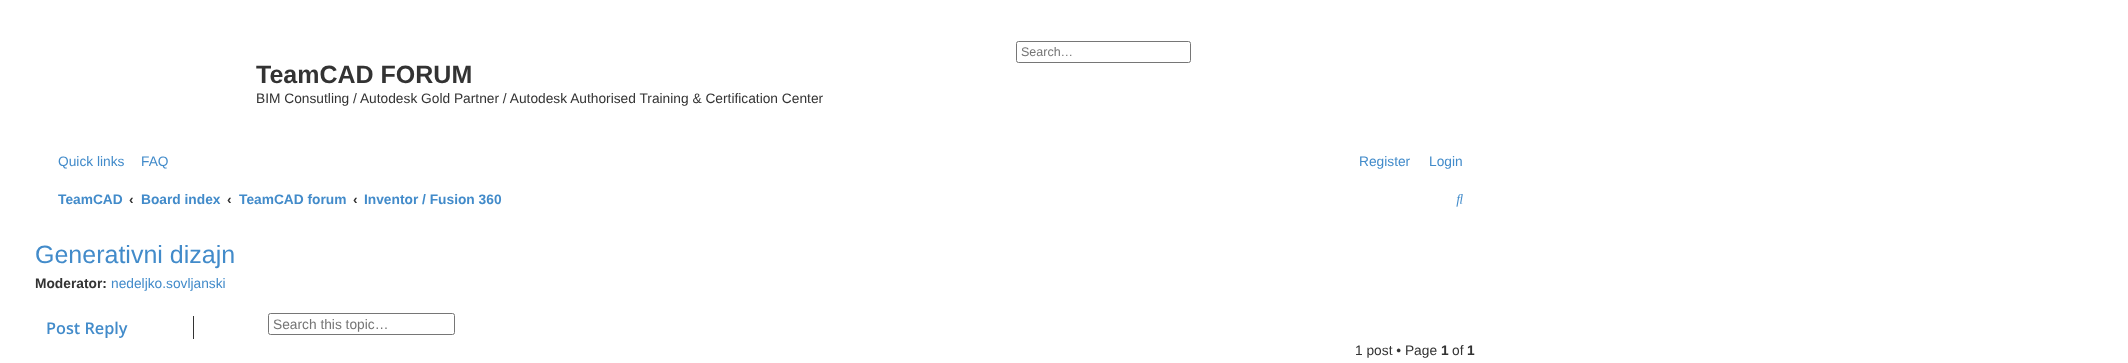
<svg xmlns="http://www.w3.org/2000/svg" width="2128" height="363">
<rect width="100%" height="100%" fill="#fff"/>
<rect x="1016.5" y="41.5" width="174" height="21" rx="2" fill="none" stroke="#767676"/>
<text x="1021" y="56" style="font-family:Liberation Sans;font-size:12.5px;fill:#757575">Search…</text>
<text x="256" y="83" style="font-family:Liberation Sans;font-size:25px;font-weight:bold;fill:#333">TeamCAD FORUM</text>
<text x="256" y="103" style="font-family:Liberation Sans;font-size:13.75px;fill:#333">BIM Consutling / Autodesk Gold Partner / Autodesk Authorised Training &amp; Certification Center</text>
<text x="58" y="166" style="font-family:Liberation Sans;font-size:13.75px;fill:#428bca">Quick links</text>
<text x="141" y="166" style="font-family:Liberation Sans;font-size:13.75px;fill:#428bca">FAQ</text>
<text x="1359" y="166" style="font-family:Liberation Sans;font-size:13.75px;fill:#428bca">Register</text>
<text x="1429" y="166" style="font-family:Liberation Sans;font-size:13.75px;fill:#428bca">Login</text>
<text x="58" y="204" style="font-family:Liberation Sans;font-size:13.75px;font-weight:bold;fill:#428bca">TeamCAD</text>
<text x="129" y="204" style="font-family:Liberation Sans;font-size:13.75px;font-weight:bold;fill:#333">‹</text>
<text x="141" y="204" style="font-family:Liberation Sans;font-size:13.75px;font-weight:bold;fill:#428bca">Board index</text>
<text x="227" y="204" style="font-family:Liberation Sans;font-size:13.75px;font-weight:bold;fill:#333">‹</text>
<text x="239" y="204" style="font-family:Liberation Sans;font-size:13.75px;font-weight:bold;fill:#428bca">TeamCAD forum</text>
<text x="353" y="204" style="font-family:Liberation Sans;font-size:13.75px;font-weight:bold;fill:#333">‹</text>
<text x="364" y="204" style="font-family:Liberation Sans;font-size:13.75px;font-weight:bold;fill:#428bca">Inventor / Fusion 360</text>
<image x="1456" y="194" width="7" height="13" href="media/1.png"/>
<text x="35" y="263" style="font-family:Liberation Sans;font-size:25px;fill:#428bca">Generativni dizajn</text>
<text x="35" y="288" style="font-family:Liberation Sans;font-size:13.75px;font-weight:bold;fill:#333">Moderator:</text>
<text x="111" y="288" style="font-family:Liberation Sans;font-size:13.75px;fill:#428bca">nedeljko.sovljanski</text>
<text x="46" y="334" style="font-family:Open Sans;font-size:16.25px;font-weight:600;fill:#428bca">Post Reply</text>
<rect x="193" y="316" width="1" height="23" fill="#333"/>
<rect x="268.5" y="313.5" width="186" height="21" rx="2" fill="none" stroke="#767676"/>
<text x="273" y="329" style="font-family:Liberation Sans;font-size:13.75px;fill:#757575">Search this topic…</text>
<text x="1355" y="355" style="font-family:Liberation Sans;font-size:13.75px;fill:#333">1 post • Page</text>
<text x="1441" y="355" style="font-family:Liberation Sans;font-size:13.75px;font-weight:bold;fill:#333">1</text>
<text x="1452" y="355" style="font-family:Liberation Sans;font-size:13.75px;fill:#333">of</text>
<text x="1467" y="355" style="font-family:Liberation Sans;font-size:13.75px;font-weight:bold;fill:#333">1</text>
</svg>
